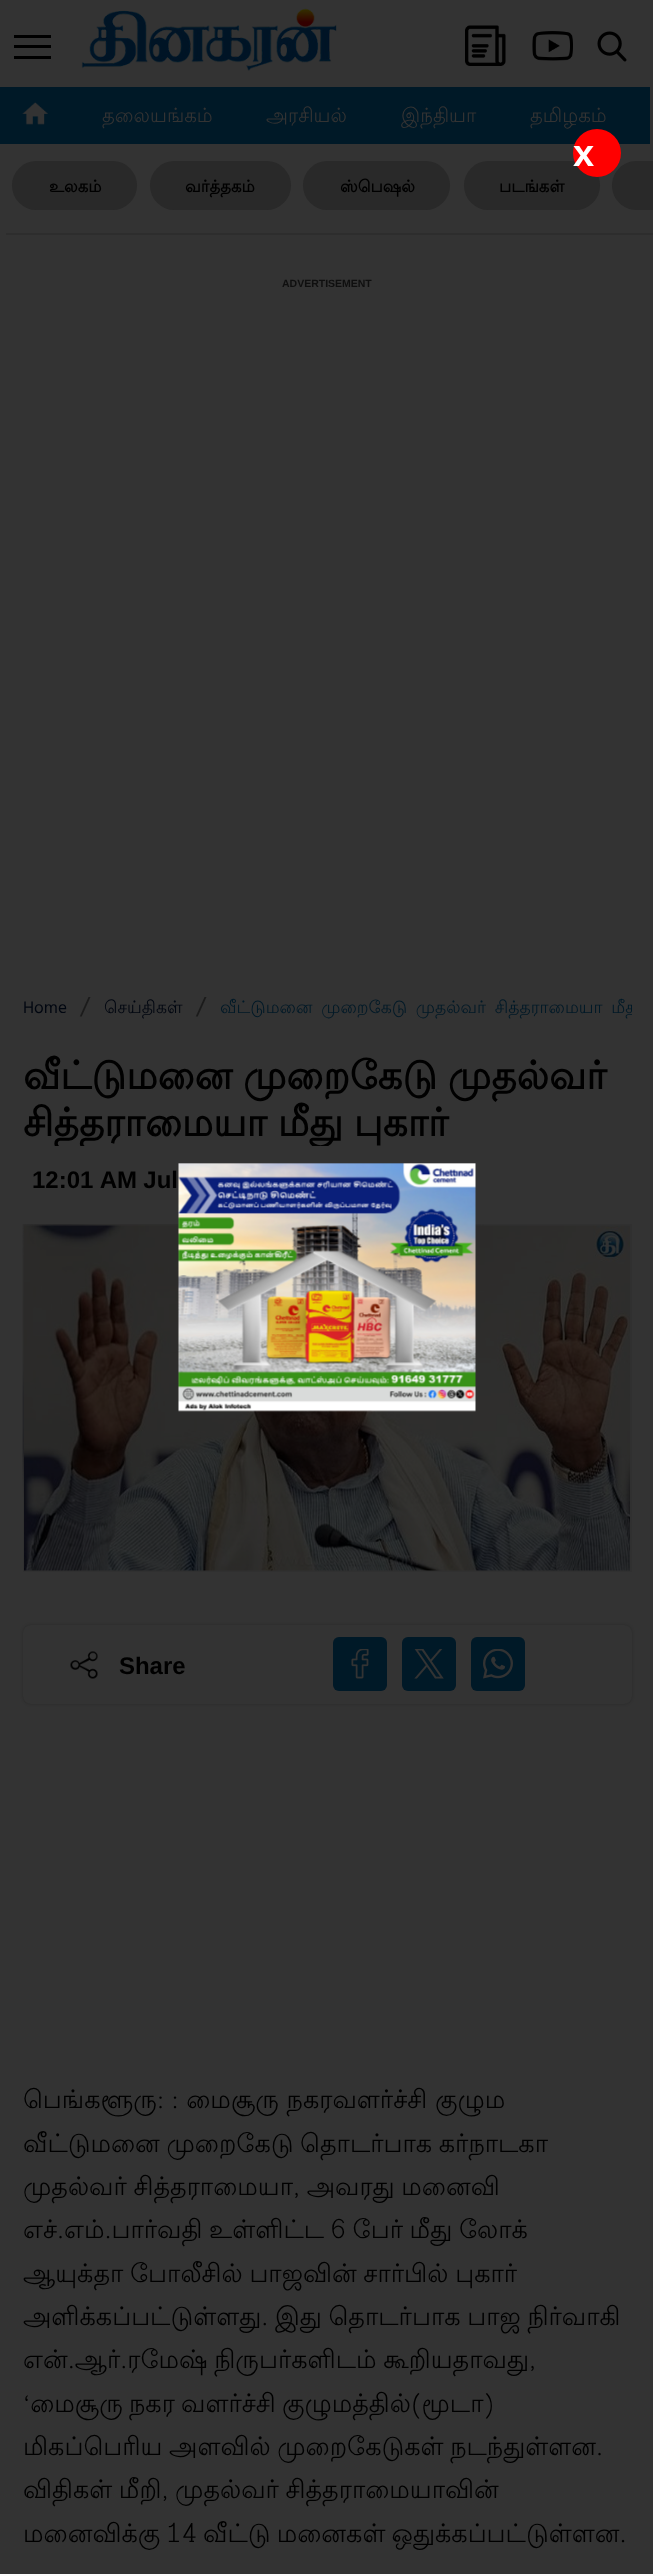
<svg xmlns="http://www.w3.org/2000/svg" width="653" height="2574">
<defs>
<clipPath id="clip1"><rect x="23" y="987" width="609" height="51"/></clipPath>
<clipPath id="clip2"><rect x="23" y="1052" width="609" height="94"/></clipPath>
</defs>
<rect width="100%" height="100%" fill="#333"/>
<rect x="14" y="35" width="37" height="3" fill="#000"/>
<rect x="14" y="45" width="37" height="3" fill="#000"/>
<rect x="14" y="56" width="37" height="3" fill="#000"/>
<image x="81" y="8" width="256" height="63" href="media/1.png"/>
<image x="465" y="25" width="41" height="41" href="media/2.png"/>
<image x="532" y="31" width="41" height="30" href="media/3.png"/>
<image x="597" y="31" width="30" height="31" href="media/4.png"/>
<rect y="87" width="650" height="57" fill="#001927"/>
<image x="22" y="102" width="26" height="23" href="media/5.png"/>
<text x="102" y="122" style="font-family:Lohit Tamil;font-size:19.75px;fill:#333">தலையங்கம்</text>
<text x="266" y="122" style="font-family:Lohit Tamil;font-size:19.75px;fill:#333">அரசியல்</text>
<text x="401" y="122" style="font-family:Lohit Tamil;font-size:19.75px;fill:#333">இந்தியா</text>
<text x="530" y="122" style="font-family:Lohit Tamil;font-size:19.75px;fill:#333">தமிழகம்</text>
<rect x="6" y="233" width="647" height="2" fill="#2d2d2d"/>
<rect x="12" y="161" width="125" height="49" rx="24.5" fill="#292929"/>
<text x="49" y="192" style="font-family:Lohit Tamil;font-size:16.5px;font-weight:bold;fill:#000">உலகம்</text>
<rect x="150" y="161" width="141" height="49" rx="24.5" fill="#292929"/>
<text x="185" y="192" style="font-family:Lohit Tamil;font-size:16.5px;font-weight:bold;fill:#000">வர்த்தகம்</text>
<rect x="303" y="161" width="147" height="49" rx="24.5" fill="#292929"/>
<text x="340" y="192" style="font-family:Lohit Tamil;font-size:16.5px;font-weight:bold;fill:#000">ஸ்பெஷல்</text>
<rect x="464" y="161" width="136" height="49" rx="24.5" fill="#292929"/>
<text x="499" y="192" style="font-family:Lohit Tamil;font-size:16.5px;font-weight:bold;fill:#000">படங்கள்</text>
<path d="M636.5 161h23.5v49h-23.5c-13.5 0-24.5-11-24.5-24.5c0-13.5 11-24.5 24.5-24.5z" fill="#292929"/>
<text x="282" y="287" style="font-family:Ramabhadra;font-size:10.5px;fill:#0f0f0f">ADVERTISEMENT</text>
<text x="23" y="1013" style="font-family:Hind;font-size:17.25px;fill:#000610">Home</text>
<text x="80" y="1014" style="font-family:Hind;font-size:24px;fill:#1b1b1b">/</text>
<text x="104" y="1013" style="font-family:Lohit Tamil;font-size:17.25px;fill:#000610">செய்திகள்</text>
<text x="196" y="1014" style="font-family:Hind;font-size:24px;fill:#1b1b1b">/</text>
<g clip-path="url(#clip1)">
<text x="220" y="1013" word-spacing="3.5" style="font-family:Lohit Tamil;font-size:17.25px;fill:#001927">வீட்டுமனை முறைகேடு முதல்வர் சித்தராமையா மீத</text>
</g>
<text x="23" y="1089" word-spacing="-1" style="font-family:Lohit Tamil;font-size:39px;font-weight:bold;fill:#000">வீட்டுமனை முறைகேடு முதல்வர்</text>
<g clip-path="url(#clip2)">
<text x="23" y="1136" word-spacing="-1" style="font-family:Lohit Tamil;font-size:39px;font-weight:bold;fill:#000">சித்தராமையா மீது புகார்</text>
</g>
<text x="32" y="1188" style="font-family:Ramabhadra;font-size:24px;fill:#000">12:01 AM Jul</text>
<rect x="24" y="1225" width="607" height="346" fill="none" stroke="#303030" stroke-width="2"/>
<image x="22" y="1224" width="462" height="273" href="media/6.png"/>
<image x="24" y="1225" width="606" height="346" href="media/7.png"/>
<rect x="23" y="1625" width="609" height="79" rx="8" fill="#00000033" filter="blur(1.5px)"/>
<rect x="23" y="1625" width="609" height="79" rx="8" fill="#333"/>
<image x="70" y="1651" width="28" height="28" href="media/8.png"/>
<text x="119" y="1674" style="font-family:Ramabhadra;font-size:24px;fill:#000">Share</text>
<rect x="333" y="1637" width="54" height="54" rx="6" fill="#001927"/>
<image x="351" y="1649" width="18" height="30" href="media/9.png"/>
<rect x="402" y="1637" width="54" height="54" rx="6" fill="#001927"/>
<image x="414" y="1649" width="30" height="30" href="media/10.png"/>
<rect x="471" y="1637" width="54" height="54" rx="6" fill="#001927"/>
<image x="483" y="1649" width="30" height="30" href="media/11.png"/>
<text x="23" y="2108" style="font-family:Lohit Tamil;font-size:25.5px;fill:#000">பெங்களூரு: : மைசூரு நகரவளர்ச்சி குழும</text>
<text x="23" y="2152" word-spacing="-1" style="font-family:Lohit Tamil;font-size:25.5px;fill:#000">வீட்டுமனை முறைகேடு தொடர்பாக கர்நாடகா</text>
<text x="23" y="2195" word-spacing="-1" style="font-family:Lohit Tamil;font-size:25.5px;fill:#000">முதல்வர் சித்தராமையா, அவரது மனைவி</text>
<text x="23" y="2238" word-spacing="-1" style="font-family:Lohit Tamil;font-size:25.5px;fill:#000">எச்.எம்.பார்வதி உள்ளிட்ட 6 பேர் மீது லோக்</text>
<text x="23" y="2282" word-spacing="-1" style="font-family:Lohit Tamil;font-size:25.5px;fill:#000">ஆயுக்தா போலீசில் பாஜவின் சார்பில் புகார்</text>
<text x="23" y="2325" word-spacing="-1" style="font-family:Lohit Tamil;font-size:25.5px;fill:#000">அளிக்கப்பட்டுள்ளது. இது தொடர்பாக பாஜ நிர்வாகி</text>
<text x="23" y="2368" word-spacing="-1" style="font-family:Lohit Tamil;font-size:25.5px;fill:#000">என்.ஆர்.ரமேஷ் நிருபர்களிடம் கூறியதாவது,</text>
<text x="23" y="2412" word-spacing="-1.5" style="font-family:Lohit Tamil;font-size:25.5px;fill:#000">‘மைசூரு நகர வளர்ச்சி குழுமத்தில்(மூடா)</text>
<text x="23" y="2455" word-spacing="-1" style="font-family:Lohit Tamil;font-size:25.5px;fill:#000">மிகப்பெரிய அளவில் முறைகேடுகள் நடந்துள்ளன.</text>
<text x="23" y="2498" word-spacing="-1" style="font-family:Lohit Tamil;font-size:25.5px;fill:#000">விதிகள் மீறி, முதல்வர் சித்தராமையாவின்</text>
<text x="23" y="2542" word-spacing="-1.5" style="font-family:Lohit Tamil;font-size:25.5px;fill:#000">மனைவிக்கு 14 வீட்டு மனைகள் ஒதுக்கப்பட்டுள்ளன.</text>
<circle cx="597" cy="153" r="24" fill="#f00"/>
<text x="573" y="166" style="font-family:Ramabhadra;font-size:38px;fill:#fff">x</text>
<image x="178" y="1163" width="298" height="249" href="media/12.png"/>
</svg>
